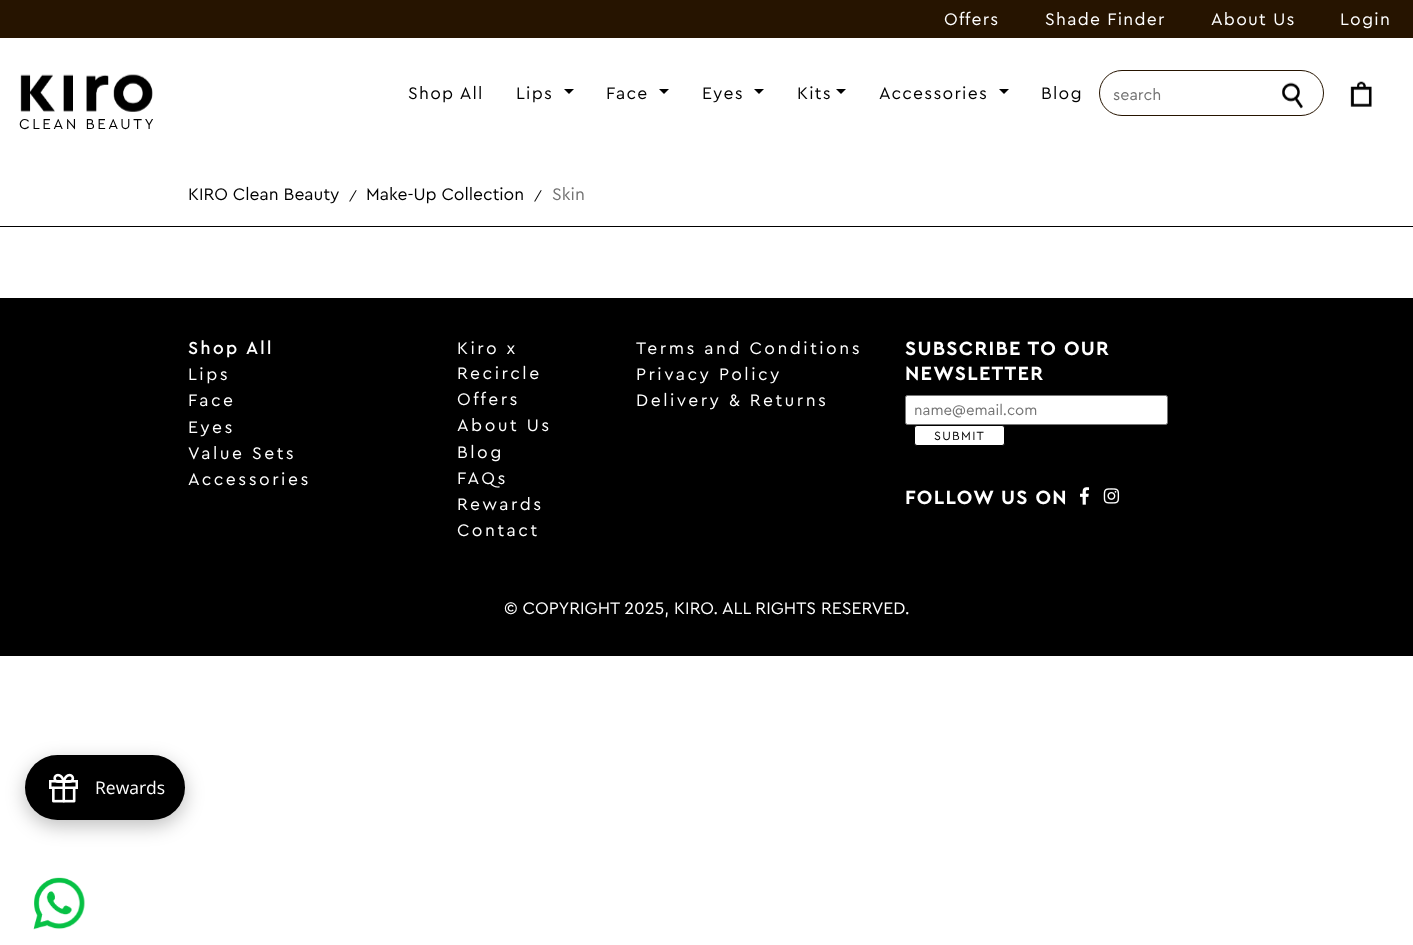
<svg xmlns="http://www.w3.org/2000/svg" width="1413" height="945">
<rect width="100%" height="100%" fill="#fff"/>
<rect width="1413" height="38" fill="#261400"/>
<text x="944" y="25" style="font-family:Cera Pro;font-size:17.5px;letter-spacing:1.25px;fill:#fff">Offers</text>
<text x="1045" y="25" style="font-family:Cera Pro;font-size:17.5px;letter-spacing:1.25px;fill:#fff">Shade Finder</text>
<text x="1211" y="25" style="font-family:Cera Pro;font-size:17.5px;letter-spacing:1.25px;fill:#fff">About Us</text>
<text x="1340" y="25" style="font-family:Cera Pro;font-size:17.5px;letter-spacing:1.25px;fill:#fff">Login</text>
<text x="408" y="99" style="font-family:Cera Pro;font-size:17.5px;letter-spacing:1.25px;fill:#000">Shop All</text>
<text x="516" y="99" style="font-family:Cera Pro;font-size:17.5px;letter-spacing:1.25px;fill:#000">Lips</text>
<path d="M564 89h10l-5 5z" fill="#000"/>
<text x="606" y="99" style="font-family:Cera Pro;font-size:17.5px;letter-spacing:1.25px;fill:#000">Face</text>
<path d="M659 89h10l-5 5z" fill="#000"/>
<text x="702" y="99" style="font-family:Cera Pro;font-size:17.5px;letter-spacing:1.25px;fill:#000">Eyes</text>
<path d="M754 89h10l-5 5z" fill="#000"/>
<text x="797" y="99" style="font-family:Cera Pro;font-size:17.5px;letter-spacing:1.25px;fill:#000">Kits</text>
<path d="M836 89h10l-5 5z" fill="#000"/>
<text x="879" y="99" style="font-family:Cera Pro;font-size:17.5px;letter-spacing:1.25px;fill:#000">Accessories</text>
<path d="M999 89h10l-5 5z" fill="#000"/>
<text x="1041" y="99" style="font-family:Cera Pro;font-size:17.5px;letter-spacing:1.25px;fill:#000">Blog</text>
<rect x="1099.5" y="70.5" width="224" height="45" rx="22.5" fill="none" stroke="#261400"/>
<text x="1113" y="100" style="font-family:Cera Pro;font-size:16px;fill:#737373">search</text>
<image x="1282" y="82" width="21" height="27" href="media/1.png"/>
<image x="1350" y="81" width="22" height="26" href="media/2.png"/>
<image x="20" y="74" width="133" height="38" href="media/3.png"/>
<text x="19" y="129" style="font-family:Cera Pro;font-size:15px;letter-spacing:2.5px;fill:#000">CLEAN BEAUTY</text>
<text x="188" y="200" style="font-family:Cera Pro;font-size:17.5px;fill:#000">KIRO Clean Beauty</text>
<text x="349" y="200" style="font-family:Cera Pro;font-size:12.5px;fill:#000">/</text>
<text x="366" y="200" style="font-family:Cera Pro;font-size:17.5px;fill:#000">Make-Up Collection</text>
<text x="534" y="200" style="font-family:Cera Pro;font-size:12.5px;fill:#000">/</text>
<text x="552" y="200" style="font-family:Cera Pro;font-size:17.5px;fill:#737373">Skin</text>
<rect y="226" width="1413" height="1" fill="#000"/>
<rect y="298" width="1413" height="358" fill="#000"/>
<text x="188" y="354" style="font-family:Cera Pro;font-size:17.5px;font-weight:bold;letter-spacing:2.5px;fill:#fff">Shop All</text>
<text x="188" y="380" style="font-family:Cera Pro;font-size:17.5px;letter-spacing:2.5px;fill:#fff">Lips</text>
<text x="188" y="406" style="font-family:Cera Pro;font-size:17.5px;letter-spacing:2.5px;fill:#fff">Face</text>
<text x="188" y="433" style="font-family:Cera Pro;font-size:17.5px;letter-spacing:2.5px;fill:#fff">Eyes</text>
<text x="188" y="459" style="font-family:Cera Pro;font-size:17.5px;letter-spacing:2.5px;fill:#fff">Value Sets</text>
<text x="188" y="485" style="font-family:Cera Pro;font-size:17.5px;letter-spacing:2.5px;fill:#fff">Accessories</text>
<text x="457" y="354" style="font-family:Cera Pro;font-size:17.5px;letter-spacing:2.5px;fill:#fff">Kiro x</text>
<text x="457" y="379" style="font-family:Cera Pro;font-size:17.5px;letter-spacing:2.5px;fill:#fff">Recircle</text>
<text x="457" y="405" style="font-family:Cera Pro;font-size:17.5px;letter-spacing:2.5px;fill:#fff">Offers</text>
<text x="457" y="431" style="font-family:Cera Pro;font-size:17.5px;letter-spacing:2.5px;fill:#fff">About Us</text>
<text x="457" y="458" style="font-family:Cera Pro;font-size:17.5px;letter-spacing:2.5px;fill:#fff">Blog</text>
<text x="457" y="484" style="font-family:Cera Pro;font-size:17.5px;letter-spacing:2.5px;fill:#fff">FAQs</text>
<text x="457" y="510" style="font-family:Cera Pro;font-size:17.5px;letter-spacing:2.5px;fill:#fff">Rewards</text>
<text x="457" y="536" style="font-family:Cera Pro;font-size:17.5px;letter-spacing:2.5px;fill:#fff">Contact</text>
<text x="636" y="354" style="font-family:Cera Pro;font-size:17.5px;letter-spacing:2.5px;fill:#fff">Terms and Conditions</text>
<text x="636" y="380" style="font-family:Cera Pro;font-size:17.5px;letter-spacing:2.5px;fill:#fff">Privacy Policy</text>
<text x="636" y="406" style="font-family:Cera Pro;font-size:17.5px;letter-spacing:2.5px;fill:#fff">Delivery &amp; Returns</text>
<text x="905" y="355" style="font-family:'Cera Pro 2';font-size:20px;font-weight:bold;letter-spacing:1.25px;fill:#fff">SUBSCRIBE TO OUR</text>
<text x="905" y="380" style="font-family:'Cera Pro 2';font-size:20px;font-weight:bold;letter-spacing:1.25px;fill:#fff">NEWSLETTER</text>
<rect x="905.5" y="395.5" width="262" height="29" rx="2" fill="#fff" stroke="#767676"/>
<text x="914" y="415" style="font-family:Cera Pro;font-size:15px;fill:#737373">name@email.com</text>
<rect x="914.5" y="425.5" width="90" height="20" rx="2.5" fill="#fff" stroke="#000"/>
<text x="934" y="440" style="font-family:Cera Pro;font-size:12.5px;letter-spacing:1.25px;fill:#000">SUBMIT</text>
<text x="905" y="504" style="font-family:'Cera Pro 2';font-size:20px;font-weight:bold;letter-spacing:1.25px;fill:#fff">FOLLOW US ON</text>
<image x="1080" y="487" width="10" height="18" href="media/4.png"/>
<image x="1103" y="488" width="17" height="16" href="media/5.png"/>
<text x="504" y="614" style="font-family:Cera Pro;font-size:17.5px;fill:#fff">© COPYRIGHT 2025, KIRO.</text>
<text x="722" y="614" style="font-family:Cera Pro;font-size:17.5px;fill:#fff">ALL RIGHTS RESERVED.</text>
<image x="33" y="877" width="52" height="53" href="media/6.png"/>
<rect x="25" y="761" width="160" height="65" rx="32.5" fill="#00000040" filter="blur(9.5px)"/>
<rect x="25" y="755" width="160" height="65" rx="32.5" fill="#000"/>
<rect x="25.5" y="755.5" width="159" height="64" rx="32" fill="none" stroke="#0000001a"/>
<image x="49" y="773" width="29" height="30" href="media/7.png"/>
<text x="95" y="794" style="font-family:Open Sans;font-size:17.5px;fill:#fff">Rewards</text>
</svg>
